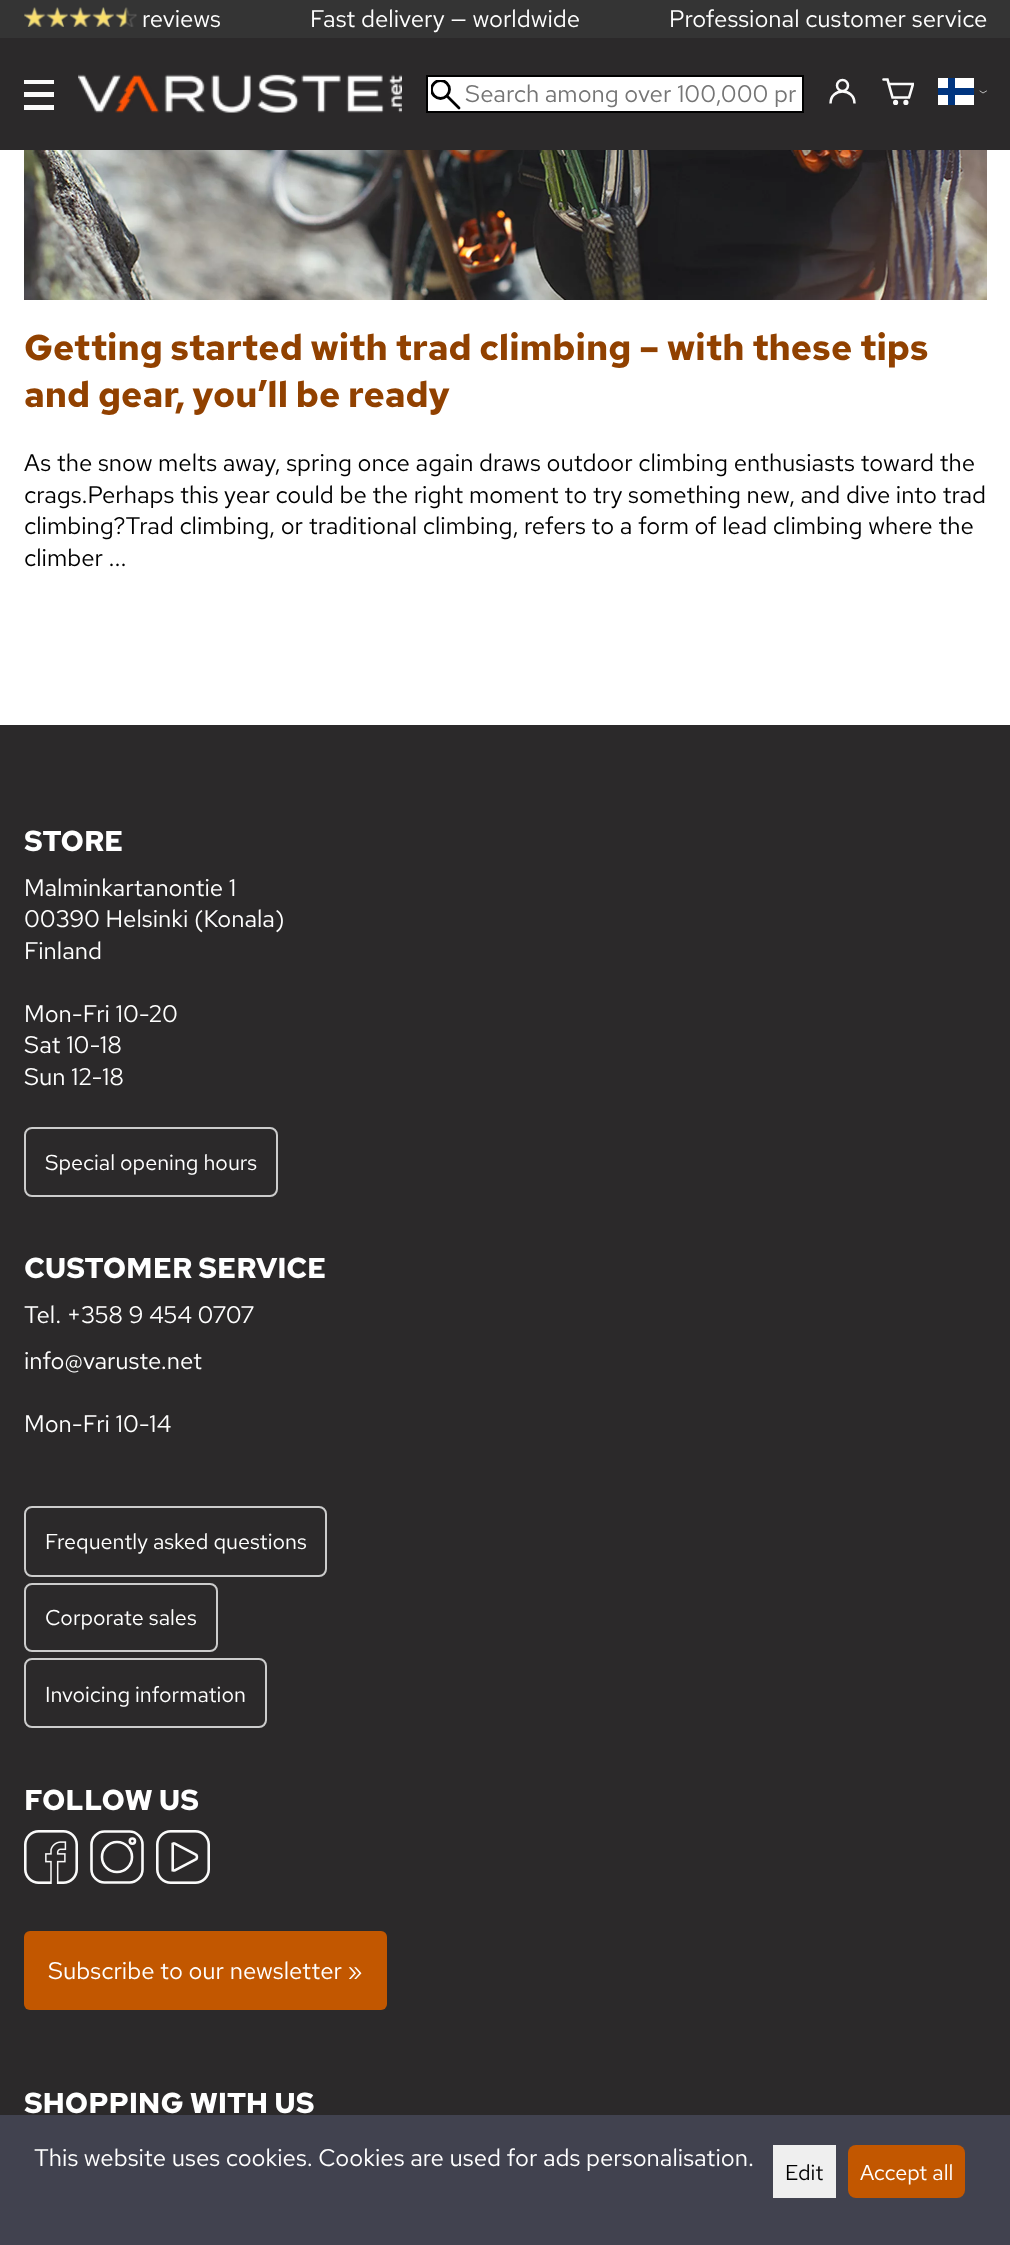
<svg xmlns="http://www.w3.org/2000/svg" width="1010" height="2245">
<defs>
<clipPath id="clip1"><rect x="431" y="80" width="30" height="30"/></clipPath>
<clipPath id="clip2"><rect x="882" y="78" width="32" height="27"/></clipPath>
</defs>
<rect width="100%" height="100%" fill="#fff"/>
<rect width="1010" height="38" fill="#343434"/>
<image x="24" y="7" width="113" height="20" href="media/1.png"/>
<text x="142" y="27" style="font-family:Red Hat Text;font-size:24px;fill:#fff">reviews</text>
<text x="310" y="27" style="font-family:Red Hat Text;font-size:24px;fill:#fff">Fast delivery — worldwide</text>
<text x="669" y="27" style="font-family:Red Hat Text;font-size:24px;fill:#fff">Professional customer service</text>
<rect y="38" width="1010" height="112" fill="#2b292a"/>
<rect x="24" y="80" width="30" height="4" fill="#fafafa"/>
<rect x="24" y="105" width="30" height="5" fill="#fafafa"/>
<rect x="24" y="92" width="30" height="5" fill="#fafafa"/>
<image x="78" y="74" width="324" height="39" href="media/2.png"/>
<rect x="427" y="76" width="376" height="36" fill="#fff" stroke="#000" stroke-width="2"/>
<path d="M459 108l-12-12" fill="none" stroke="#000" stroke-width="2.8" stroke-linecap="round"/>
<g clip-path="url(#clip1)">
<circle cx="440.5" cy="89.5" r="9" fill="none" stroke="#000" stroke-width="2.8"/>
</g>
<text x="465" y="102" style="font-family:Red Hat Text;font-size:24px;fill:#757575">Search among over 100,000 pr</text>
<circle cx="842.5" cy="85.5" r="5.5" fill="none" stroke="#fafafa" stroke-width="2.5"/>
<path d="M830.5 103.5c0-16 24-16 24 0" fill="none" stroke="#fafafa" stroke-width="2.5"/>
<g clip-path="url(#clip2)">
<path d="M889 84h24l-4 13.5h-16.5l-5-18h-4" fill="none" stroke="#fafafa" stroke-width="2.6" stroke-linecap="round"/>
</g>
<circle cx="895.6" cy="102.4" r="1.3" fill="none" stroke="#fafafa" stroke-width="2.6"/>
<circle cx="905.9" cy="102.4" r="1.3" fill="none" stroke="#fafafa" stroke-width="2.6"/>
<rect x="938" y="78" width="36" height="27" fill="#fff"/>
<rect x="938" y="88" width="36" height="7" fill="#003580"/>
<rect x="948" y="78" width="7" height="27" fill="#003580"/>
<path d="M980 91l3 2l3.5-2" fill="none" stroke="#fafafa" stroke-width="0.7" stroke-linecap="round"/>
<image x="24" y="150" width="963" height="150" href="media/3.png"/>
<text x="24" y="360" style="font-family:Red Hat Text;font-size:36px;font-weight:bold;fill:#914100">Getting started with trad climbing – with these tips</text>
<text x="24" y="407" style="font-family:Red Hat Text;font-size:36px;font-weight:bold;fill:#914100">and gear, you’ll be ready</text>
<text x="24" y="471" style="font-family:Red Hat Text;font-size:24px;fill:#000">As the snow melts away, spring once again draws outdoor climbing enthusiasts toward the</text>
<text x="24" y="503" style="font-family:Red Hat Text;font-size:24px;fill:#000">crags.Perhaps this year could be the right moment to try something new, and dive into trad</text>
<text x="24" y="534" style="font-family:Red Hat Text;font-size:24px;fill:#000">climbing?Trad climbing, or traditional climbing, refers to a form of lead climbing where the</text>
<text x="24" y="566" style="font-family:Red Hat Text;font-size:24px;fill:#000">climber ...</text>
<rect y="725" width="1010" height="1390" fill="#2b292a"/>
<text x="24" y="851" style="font-family:Red Hat Text;font-size:28.75px;font-weight:bold;fill:#fff">STORE</text>
<text x="24" y="896" style="font-family:Red Hat Text;font-size:24px;fill:#fff">Malminkartanontie 1</text>
<text x="24" y="927" style="font-family:Red Hat Text;font-size:24px;fill:#fff">00390 Helsinki (Konala)</text>
<text x="24" y="959" style="font-family:Red Hat Text;font-size:24px;fill:#fff">Finland</text>
<text x="24" y="1022" style="font-family:Red Hat Text;font-size:24px;fill:#fff">Mon-Fri 10-20</text>
<text x="24" y="1053" style="font-family:Red Hat Text;font-size:24px;fill:#fff">Sat 10-18</text>
<text x="24" y="1085" style="font-family:Red Hat Text;font-size:24px;fill:#fff">Sun 12-18</text>
<rect x="25" y="1128" width="252" height="68" rx="7" fill="none" stroke="#ccc" stroke-width="2"/>
<text x="45" y="1170" style="font-family:Red Hat Text;font-size:21.6px;fill:#fff">Special opening hours</text>
<text x="24" y="1278" style="font-family:Red Hat Text;font-size:28.75px;font-weight:bold;fill:#fff">CUSTOMER SERVICE</text>
<text x="24" y="1323" style="font-family:Red Hat Text;font-size:24px;fill:#fff">Tel. +358 9 454 0707</text>
<text x="24" y="1369" style="font-family:Red Hat Text;font-size:24px;fill:#fff">info@varuste.net</text>
<text x="24" y="1432" style="font-family:Red Hat Text;font-size:24px;fill:#fff">Mon-Fri 10-14</text>
<rect x="25" y="1507" width="301" height="69" rx="7" fill="none" stroke="#ccc" stroke-width="2"/>
<text x="45" y="1549" style="font-family:Red Hat Text;font-size:21.6px;fill:#fff">Frequently asked questions</text>
<rect x="25" y="1584" width="192" height="67" rx="7" fill="none" stroke="#ccc" stroke-width="2"/>
<text x="45" y="1625" style="font-family:Red Hat Text;font-size:21.6px;fill:#fff">Corporate sales</text>
<rect x="25" y="1659" width="241" height="68" rx="7" fill="none" stroke="#ccc" stroke-width="2"/>
<text x="45" y="1702" style="font-family:Red Hat Text;font-size:21.6px;fill:#fff">Invoicing information</text>
<text x="24" y="1810" style="font-family:Red Hat Text;font-size:28.75px;font-weight:bold;fill:#fff">FOLLOW US</text>
<image x="24" y="1830" width="54" height="54" href="media/4.png"/>
<path d="M129.5 1882.5h-25c-7 0-13-6-13-13v-25c0-7 6-13 13-13h25c7 0 13 6 13 13v25c0 7-6 13-13 13" fill="none" stroke="#fafafa" stroke-width="2.6"/>
<circle cx="117" cy="1857" r="15" fill="none" stroke="#fafafa" stroke-width="2.6"/>
<circle cx="132.4" cy="1841.1" r="2.6" fill="none" stroke="#fafafa" stroke-width="2.6"/>
<image x="156" y="1830" width="54" height="54" href="media/5.png"/>
<rect x="24" y="1931" width="363" height="79" rx="6" fill="#c25700"/>
<text x="48" y="1979" style="font-family:Red Hat Text;font-size:24px;fill:#fff">Subscribe to our newsletter »</text>
<text x="24" y="2113" style="font-family:Red Hat Text;font-size:28.75px;font-weight:bold;fill:#fff">SHOPPING WITH US</text>
<rect y="2115" width="1010" height="130" fill="#41424f"/>
<text x="34" y="2166" style="font-family:Red Hat Text;font-size:24px;fill:#fff">This website uses cookies. Cookies are used for ads personalisation.</text>
<rect x="773" y="2145" width="63" height="53" fill="#efefef"/>
<text x="785" y="2180" style="font-family:Red Hat Text;font-size:21.6px;fill:#000">Edit</text>
<rect x="848" y="2145" width="117" height="53" rx="8" fill="#c25700"/>
<text x="860" y="2180" style="font-family:Red Hat Text;font-size:21.6px;fill:#fff">Accept all</text>
</svg>
